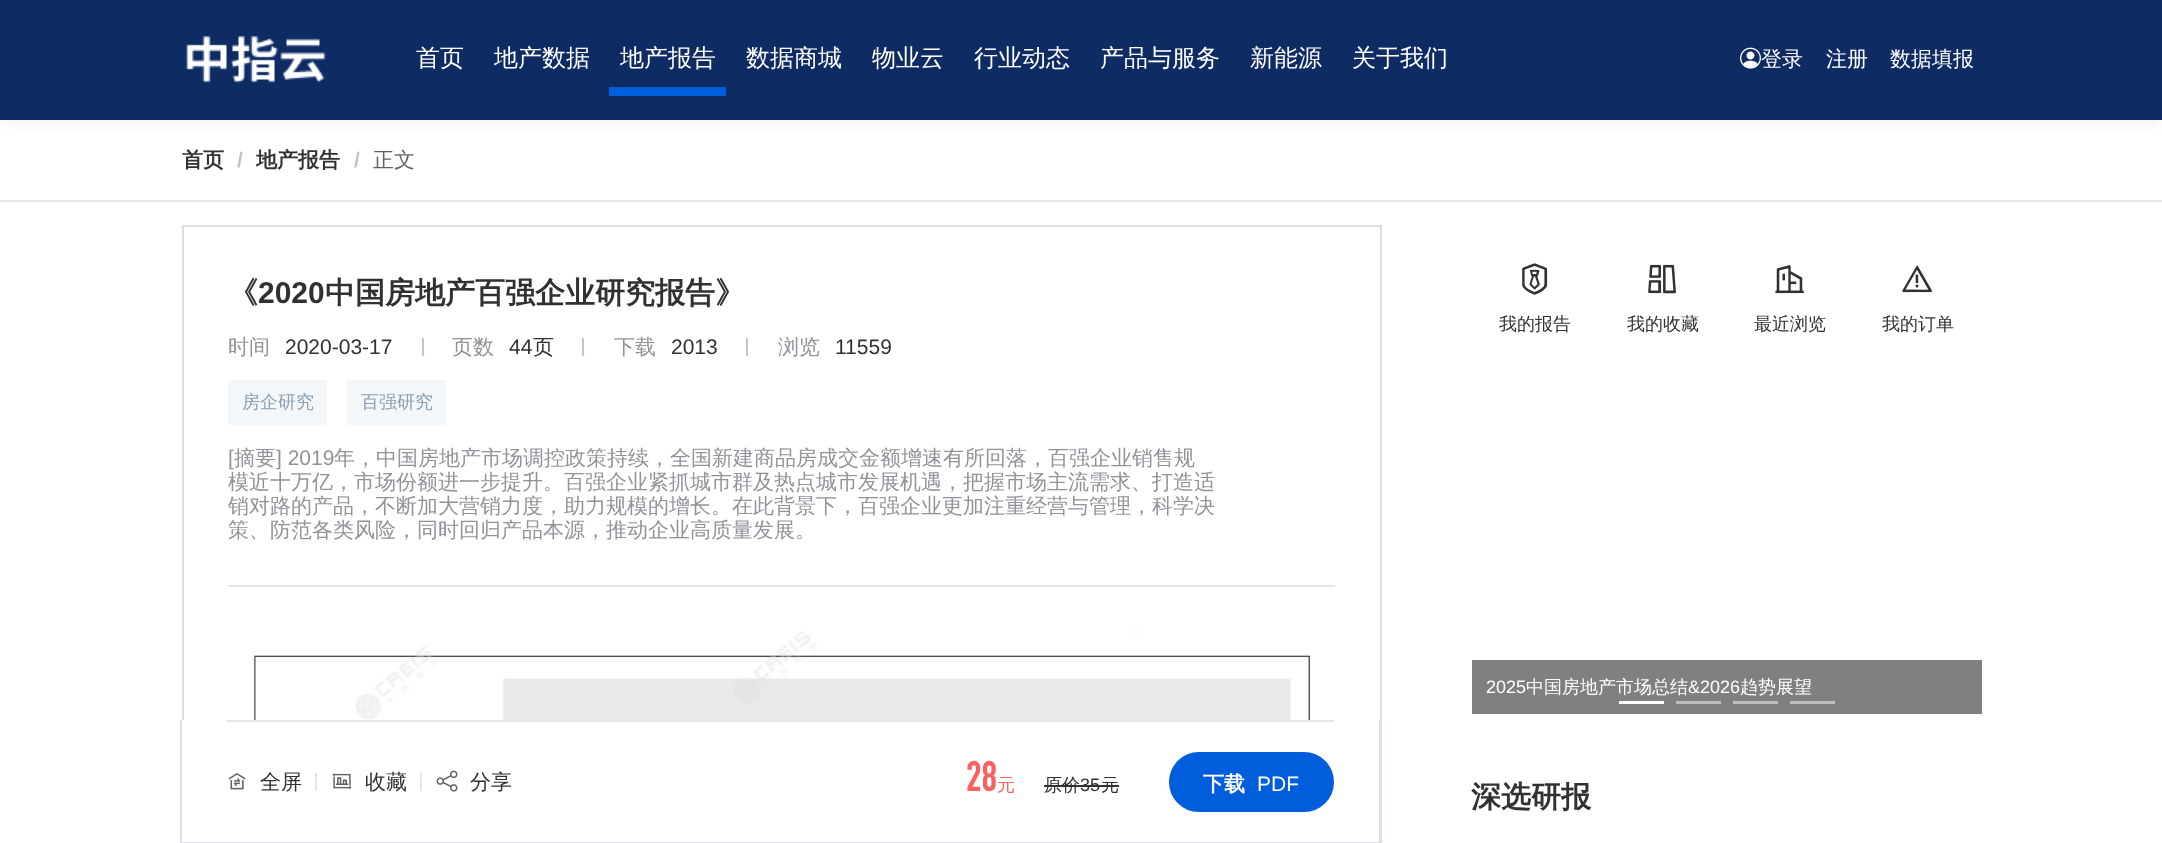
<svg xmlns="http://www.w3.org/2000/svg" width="2162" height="843">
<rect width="100%" height="100%" fill="#fff"/>
<rect y="6" width="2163" height="120" fill="#0000000a" filter="blur(6px)"/>
<rect width="2162" height="120" fill="#0e2b64"/>
<image x="185" y="36" width="141" height="47" href="media/1.png"/>
<text x="416" y="66" style="font-family:WenQuanYi Zen Hei;font-size:24px;font-weight:500;fill:#fff">首页</text>
<text x="494" y="66" style="font-family:WenQuanYi Zen Hei;font-size:24px;font-weight:500;fill:#fff">地产数据</text>
<rect x="609" y="87" width="117" height="9" fill="#005ddb"/>
<text x="620" y="66" style="font-family:WenQuanYi Zen Hei;font-size:24px;font-weight:500;fill:#fff">地产报告</text>
<text x="746" y="66" style="font-family:WenQuanYi Zen Hei;font-size:24px;font-weight:500;fill:#fff">数据商城</text>
<text x="872" y="66" style="font-family:WenQuanYi Zen Hei;font-size:24px;font-weight:500;fill:#fff">物业云</text>
<text x="974" y="66" style="font-family:WenQuanYi Zen Hei;font-size:24px;font-weight:500;fill:#fff">行业动态</text>
<text x="1100" y="66" style="font-family:WenQuanYi Zen Hei;font-size:24px;font-weight:500;fill:#fff">产品与服务</text>
<text x="1250" y="66" style="font-family:WenQuanYi Zen Hei;font-size:24px;font-weight:500;fill:#fff">新能源</text>
<text x="1352" y="66" style="font-family:WenQuanYi Zen Hei;font-size:24px;font-weight:500;fill:#fff">关于我们</text>
<image x="1740" y="47" width="21" height="22" href="media/2.png"/>
<text x="1761" y="66" style="font-family:WenQuanYi Zen Hei;font-size:21px;font-weight:500;fill:#fff">登录</text>
<text x="1826" y="66" style="font-family:WenQuanYi Zen Hei;font-size:21px;font-weight:500;fill:#fff">注册</text>
<text x="1890" y="66" style="font-family:WenQuanYi Zen Hei;font-size:21px;font-weight:500;fill:#fff">数据填报</text>
<rect y="200" width="2162" height="2" fill="#e5e5e5"/>
<text x="182" y="167" style="font-family:WenQuanYi Zen Hei;font-size:21px;font-weight:bold;fill:#303133">首页</text>
<text x="237" y="167" style="font-family:Liberation Sans;font-size:21px;font-weight:bold;fill:#c0c4cc">/</text>
<text x="256" y="167" style="font-family:WenQuanYi Zen Hei;font-size:21px;font-weight:bold;fill:#303133">地产报告</text>
<text x="354" y="167" style="font-family:Liberation Sans;font-size:21px;font-weight:bold;fill:#c0c4cc">/</text>
<text x="373" y="167" style="font-family:WenQuanYi Zen Hei;font-size:21px;font-weight:500;fill:#606266">正文</text>
<rect x="183" y="226" width="1198" height="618" fill="none" stroke="#dcdfe6" stroke-width="2"/>
<text x="228" y="303" style="font-family:WenQuanYi Zen Hei;font-size:30px;font-weight:bold;fill:#303133">《</text>
<text x="258" y="303" style="font-family:Liberation Sans;font-size:30px;font-weight:bold;fill:#303133">2020</text>
<text x="325" y="303" style="font-family:WenQuanYi Zen Hei;font-size:30px;font-weight:bold;fill:#303133">中国房地产百强企业研究报告》</text>
<text x="228" y="354" style="font-family:WenQuanYi Zen Hei;font-size:21px;font-weight:500;fill:#909399">时间</text>
<text x="285" y="354" style="font-family:Liberation Sans;font-size:21px;fill:#303133">2020-03-17</text>
<rect x="422" y="338" width="2" height="18" fill="#c0c4cc"/>
<text x="452" y="354" style="font-family:WenQuanYi Zen Hei;font-size:21px;font-weight:500;fill:#909399">页数</text>
<text x="509" y="354" style="font-family:Liberation Sans;font-size:21px;fill:#303133">44</text>
<text x="533" y="354" style="font-family:WenQuanYi Zen Hei;font-size:21px;font-weight:500;fill:#303133">页</text>
<rect x="582" y="338" width="2" height="18" fill="#c0c4cc"/>
<text x="614" y="354" style="font-family:WenQuanYi Zen Hei;font-size:21px;font-weight:500;fill:#909399">下载</text>
<text x="671" y="354" style="font-family:Liberation Sans;font-size:21px;fill:#303133">2013</text>
<rect x="746" y="338" width="2" height="18" fill="#c0c4cc"/>
<text x="778" y="354" style="font-family:WenQuanYi Zen Hei;font-size:21px;font-weight:500;fill:#909399">浏览</text>
<text x="835" y="354" style="font-family:Liberation Sans;font-size:21px;fill:#303133">11559</text>
<rect x="228" y="380" width="99" height="45" fill="#f3f7f9"/>
<text x="242" y="408" style="font-family:WenQuanYi Zen Hei;font-size:18px;font-weight:500;fill:#889eb1">房企研究</text>
<rect x="347" y="380" width="99" height="45" fill="#f3f7f9"/>
<text x="361" y="408" style="font-family:WenQuanYi Zen Hei;font-size:18px;font-weight:500;fill:#889eb1">百强研究</text>
<text x="228" y="465" style="font-family:Liberation Sans;font-size:21px;fill:#909399">[</text>
<text x="234" y="465" style="font-family:WenQuanYi Zen Hei;font-size:21px;font-weight:500;fill:#909399">摘要</text>
<text x="276" y="465" style="font-family:Liberation Sans;font-size:21px;fill:#909399">] 2019</text>
<text x="334" y="465" style="font-family:WenQuanYi Zen Hei;font-size:21px;font-weight:500;fill:#909399">年，中国房地产市场调控政策持续，全国新建商品房成交金额增速有所回落，百强企业销售规</text>
<text x="228" y="489" style="font-family:WenQuanYi Zen Hei;font-size:21px;font-weight:500;fill:#909399">模近十万亿，市场份额进一步提升。百强企业紧抓城市群及热点城市发展机遇，把握市场主流需求、打造适</text>
<text x="228" y="513" style="font-family:WenQuanYi Zen Hei;font-size:21px;font-weight:500;fill:#909399">销对路的产品，不断加大营销力度，助力规模的增长。在此背景下，百强企业更加注重经营与管理，科学决</text>
<text x="228" y="537" style="font-family:WenQuanYi Zen Hei;font-size:21px;font-weight:500;fill:#909399">策、防范各类风险，同时回归产品本源，推动企业高质量发展。</text>
<rect x="228" y="585" width="1107" height="2" fill="#e5e5e5"/>
<image x="252" y="631" width="1059" height="89" href="media/3.png"/>
<rect x="182" y="720" width="2" height="122" fill="#fff"/>
<rect x="1379" y="720" width="1" height="123" fill="#dcdfe6"/>
<rect x="180" y="842" width="1200" height="1" fill="#dcdfe6"/>
<rect x="180" y="720" width="2" height="123" fill="#dcdfe6"/>
<rect x="227" y="720" width="1107" height="2" fill="#e5e5e5"/>
<image x="228" y="773" width="18" height="17" href="media/4.png"/>
<text x="260" y="789" style="font-family:WenQuanYi Zen Hei;font-size:21px;font-weight:500;fill:#303133">全屏</text>
<rect x="315" y="773" width="2" height="18" fill="#e5e5e5"/>
<image x="332" y="773" width="20" height="16" href="media/5.png"/>
<text x="365" y="789" style="font-family:WenQuanYi Zen Hei;font-size:21px;font-weight:500;fill:#303133">收藏</text>
<rect x="420" y="773" width="2" height="18" fill="#e5e5e5"/>
<image x="436" y="770" width="22" height="22" href="media/6.png"/>
<text x="470" y="789" style="font-family:WenQuanYi Zen Hei;font-size:21px;font-weight:500;fill:#303133">分享</text>
<text x="966" y="791" style="font-family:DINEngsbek;font-size:42px;fill:#f96060">28</text>
<text x="997" y="791" style="font-family:WenQuanYi Zen Hei;font-size:18px;font-weight:500;fill:#f96060">元</text>
<text x="1044" y="791" style="font-family:WenQuanYi Zen Hei;font-size:18px;font-weight:500;fill:#303133">原价</text>
<rect x="1044" y="785" width="75" height="2" fill="#303133"/>
<text x="1080" y="791" style="font-family:Liberation Sans;font-size:18px;fill:#303133">35</text>
<text x="1101" y="791" style="font-family:WenQuanYi Zen Hei;font-size:18px;font-weight:500;fill:#303133">元</text>
<rect x="1170" y="753" width="163" height="58" rx="29" fill="#005ddb" stroke="#005ddb" stroke-width="2"/>
<text x="1203" y="791" style="font-family:WenQuanYi Zen Hei;font-size:21px;font-weight:bold;fill:#fff">下载</text>
<text x="1257" y="791" style="font-family:Liberation Sans;font-size:21px;fill:#fff">PDF</text>
<image x="1522" y="263" width="26" height="32" href="media/7.png"/>
<text x="1499" y="330" style="font-family:WenQuanYi Zen Hei;font-size:18px;font-weight:500;fill:#303133">我的报告</text>
<image x="1648" y="264" width="28" height="30" href="media/8.png"/>
<text x="1627" y="330" style="font-family:WenQuanYi Zen Hei;font-size:18px;font-weight:500;fill:#303133">我的收藏</text>
<image x="1775" y="265" width="29" height="29" href="media/9.png"/>
<text x="1754" y="330" style="font-family:WenQuanYi Zen Hei;font-size:18px;font-weight:500;fill:#303133">最近浏览</text>
<image x="1902" y="265" width="30" height="28" href="media/10.png"/>
<text x="1882" y="330" style="font-family:WenQuanYi Zen Hei;font-size:18px;font-weight:500;fill:#303133">我的订单</text>
<rect x="1472" y="660" width="510" height="54" fill="#808080"/>
<text x="1486" y="693" style="font-family:Liberation Sans;font-size:18px;fill:#fff">2025</text>
<text x="1526" y="693" style="font-family:WenQuanYi Zen Hei;font-size:18px;font-weight:500;fill:#fff">中国房地产市场总结</text>
<text x="1688" y="693" style="font-family:Liberation Sans;font-size:18px;fill:#fff">&amp;2026</text>
<text x="1740" y="693" style="font-family:WenQuanYi Zen Hei;font-size:18px;font-weight:500;fill:#fff">趋势展望</text>
<rect x="1619" y="701" width="45" height="3" fill="#fff"/>
<rect x="1676" y="701" width="45" height="3" fill="#bdbdbd"/>
<rect x="1733" y="701" width="45" height="3" fill="#bdbdbd"/>
<rect x="1790" y="701" width="45" height="3" fill="#bdbdbd"/>
<text x="1471" y="807" style="font-family:WenQuanYi Zen Hei;font-size:30px;font-weight:bold;fill:#303133">深选研报</text>
</svg>
